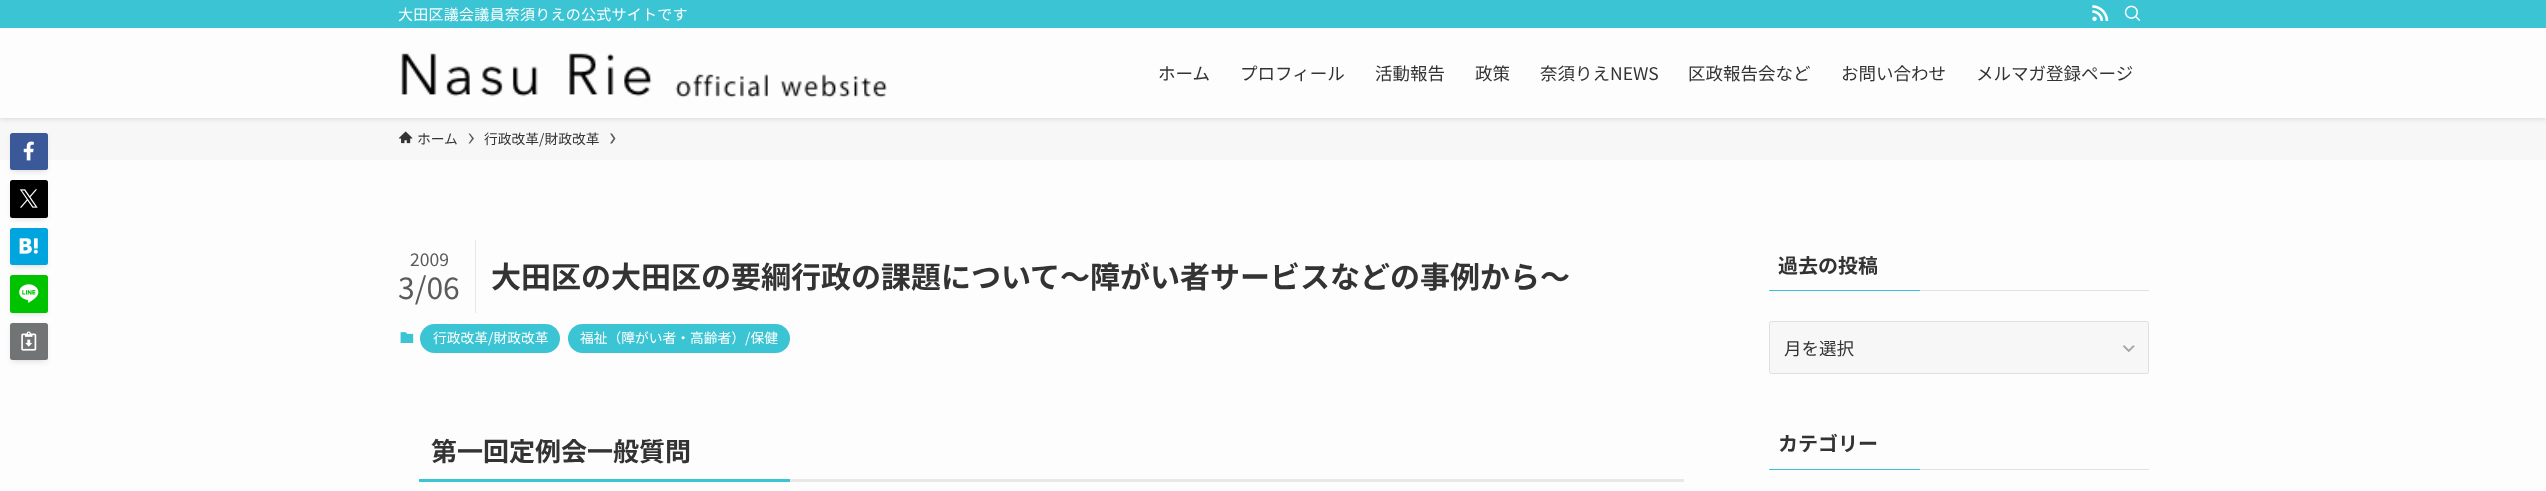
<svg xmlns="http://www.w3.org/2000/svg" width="2546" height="491">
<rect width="100%" height="100%" fill="#fdfdfd"/>
<rect y="118" width="2546" height="42" fill="#f7f7f7"/>
<rect y="1" width="2546" height="118" fill="#0000001f" filter="blur(2.5px)"/>
<rect y="28" width="2546" height="90" fill="#fdfdfd"/>
<rect width="2546" height="28" fill="#3bc4d3"/>
<text x="398" y="20" style="font-family:Noto Sans JP;font-size:15px;letter-spacing:0.25px;fill:#fff">大田区議会議員奈須りえの公式サイトです</text>
<image x="2092" y="5" width="17" height="16" href="media/1.png"/>
<image x="2124" y="5" width="17" height="16" href="media/2.png"/>
<image x="401" y="53" width="486" height="45" href="media/3.png"/>
<text x="1158" y="80" style="font-family:Noto Sans JP;font-size:17.5px;fill:#333">ホーム</text>
<text x="1240" y="80" style="font-family:Noto Sans JP;font-size:17.5px;fill:#333">プロフィール</text>
<text x="1375" y="80" style="font-family:Noto Sans JP;font-size:17.5px;fill:#333">活動報告</text>
<text x="1475" y="80" style="font-family:Noto Sans JP;font-size:17.5px;fill:#333">政策</text>
<text x="1540" y="80" style="font-family:Noto Sans JP;font-size:17.5px;fill:#333">奈須りえNEWS</text>
<text x="1688" y="80" style="font-family:Noto Sans JP;font-size:17.5px;fill:#333">区政報告会など</text>
<text x="1841" y="80" style="font-family:Noto Sans JP;font-size:17.5px;fill:#333">お問い合わせ</text>
<text x="1976" y="80" style="font-family:Noto Sans JP;font-size:17.5px;fill:#333">メルマガ登録ページ</text>
<image x="398" y="131" width="15" height="13" href="media/4.png"/>
<text x="417" y="144" style="font-family:Noto Sans JP;font-size:13.75px;fill:#333">ホーム</text>
<path d="M470 133.5h-1.5l3.5 5l-3.5 5h1.5l4-5z" fill="#5a5a5a"/>
<text x="484" y="144" style="font-family:Noto Sans JP;font-size:13.75px;fill:#333">行政改革/財政改革</text>
<path d="M612 133.5h-2l3.5 5l-3.5 5h2l3.5-5z" fill="#5a5a5a"/>
<rect x="15" y="143" width="28" height="27" fill="#0000001a" filter="blur(2.5px)"/>
<rect x="10" y="135" width="38" height="38" rx="2.5" fill="#0000000d" filter="blur(2.5px)"/>
<rect x="10" y="133" width="38" height="37" rx="2.5" fill="#3b5998"/>
<image x="23" y="141" width="11" height="20" href="media/5.png"/>
<rect x="15" y="190" width="28" height="28" fill="#0000001a" filter="blur(2.5px)"/>
<rect x="10" y="183" width="38" height="37" rx="2.5" fill="#0000000d" filter="blur(2.5px)"/>
<rect x="10" y="180" width="38" height="38" rx="2.5" fill="#000"/>
<image x="19" y="189" width="19" height="19" href="media/6.png"/>
<rect x="15" y="238" width="28" height="27" fill="#0000001a" filter="blur(2.5px)"/>
<rect x="10" y="230" width="38" height="38" rx="2.5" fill="#0000000d" filter="blur(2.5px)"/>
<rect x="10" y="228" width="38" height="37" rx="2.5" fill="#00a4de"/>
<image x="19" y="238" width="19" height="16" href="media/7.png"/>
<rect x="15" y="285" width="28" height="28" fill="#0000001a" filter="blur(2.5px)"/>
<rect x="10" y="278" width="38" height="37" rx="2.5" fill="#0000000d" filter="blur(2.5px)"/>
<rect x="10" y="275" width="38" height="38" rx="2.5" fill="#00c300"/>
<image x="19" y="284" width="20" height="19" href="media/8.png"/>
<rect x="15" y="333" width="28" height="27" fill="#0000001a" filter="blur(2.5px)"/>
<rect x="10" y="325" width="38" height="38" rx="2.5" fill="#0000000d" filter="blur(2.5px)"/>
<rect x="10" y="323" width="38" height="37" rx="2.5" fill="#717475"/>
<image x="21" y="331" width="16" height="20" href="media/9.png"/>
<rect x="475" y="240" width="1" height="73" fill="#e8e8e8"/>
<text x="410" y="266" style="font-family:Noto Sans JP;font-size:17.5px;fill:#5b5b5b">2009</text>
<text x="398" y="299" style="font-family:Noto Sans JP;font-size:30px;fill:#5b5b5b">3/06</text>
<text x="491" y="288" style="font-family:Noto Sans JP;font-size:30px;font-weight:bold;fill:#333">大田区の大田区の要綱行政の課題について〜障がい者サービスなどの事例から〜</text>
<image x="400" y="332" width="14" height="11" href="media/10.png"/>
<rect x="420" y="324" width="140" height="29" rx="14.5" fill="#3bc4d3"/>
<text x="433" y="343" style="font-family:Noto Sans JP;font-size:13.75px;fill:#fff">行政改革/財政改革</text>
<rect x="568" y="324" width="222" height="29" rx="14.5" fill="#3bc4d3"/>
<text x="580" y="343" style="font-family:Noto Sans JP;font-size:13.75px;fill:#fff">福祉（障がい者・高齢者）/保健</text>
<text x="431" y="461" style="font-family:Noto Sans JP;font-size:26px;font-weight:bold;fill:#333">第一回定例会一般質問</text>
<rect x="419" y="479" width="371" height="3" fill="#3bc4d3"/>
<rect x="790" y="479" width="894" height="3" fill="#e8e8e8"/>
<text x="1778" y="273" style="font-family:Noto Sans JP;font-size:20px;font-weight:bold;fill:#333">過去の投稿</text>
<rect x="1769" y="290" width="151" height="1" fill="#3bc4d3"/>
<rect x="1920" y="290" width="229" height="1" fill="#e2e2e2"/>
<rect x="1769" y="321" width="380" height="53" rx="2.5" fill="#f7f7f7"/>
<image x="2122" y="345" width="13" height="8" href="media/11.png"/>
<rect x="1769.5" y="321.5" width="379" height="52" rx="2" fill="none" stroke="#dfdfdf"/>
<text x="1784" y="355" style="font-family:Noto Sans JP;font-size:17.5px;fill:#333">月を選択</text>
<text x="1778" y="451" style="font-family:Noto Sans JP;font-size:20px;font-weight:bold;fill:#333">カテゴリー</text>
<rect x="1769" y="469" width="151" height="1" fill="#3bc4d3"/>
<rect x="1920" y="469" width="229" height="1" fill="#e2e2e2"/>
</svg>
